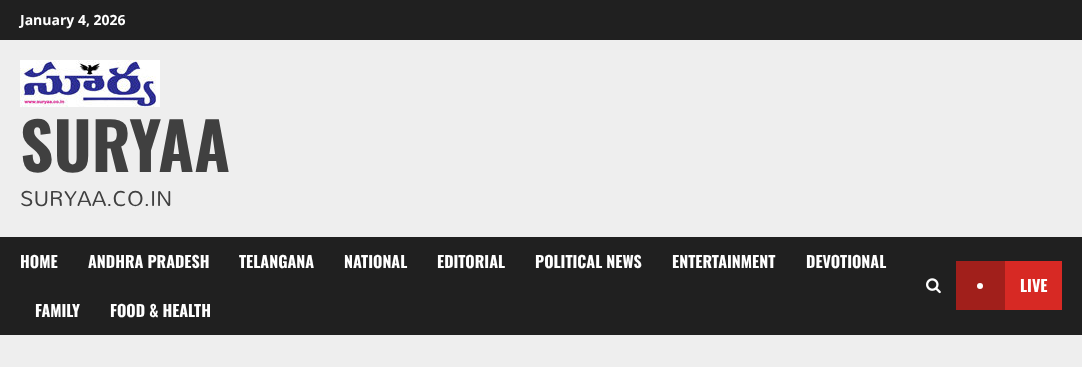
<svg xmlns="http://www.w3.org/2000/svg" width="1082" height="367">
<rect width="100%" height="100%" fill="#eee"/>
<rect width="1082" height="40" fill="#202020"/>
<text x="20" y="25" style="font-family:Open Sans;font-size:14px;font-weight:bold;fill:#fff">January 4, 2026</text>
<image x="20" y="60" width="140" height="47" href="media/1.png"/>
<text x="20" y="172" style="font-family:Oswald;font-size:65px;font-weight:bold;fill:#404040">SURYAA</text>
<text x="20" y="206" style="font-family:Mallanna;font-size:24px;fill:#404040">SURYAA.CO.IN</text>
<rect y="237" width="1082" height="98" fill="#202020"/>
<text x="20" y="268" style="font-family:Oswald;font-size:16px;font-weight:bold;fill:#fff">HOME</text>
<text x="88" y="268" style="font-family:Oswald;font-size:16px;font-weight:bold;fill:#fff">ANDHRA PRADESH</text>
<text x="239" y="268" style="font-family:Oswald;font-size:16px;font-weight:bold;fill:#fff">TELANGANA</text>
<text x="344" y="268" style="font-family:Oswald;font-size:16px;font-weight:bold;fill:#fff">NATIONAL</text>
<text x="437" y="268" style="font-family:Oswald;font-size:16px;font-weight:bold;fill:#fff">EDITORIAL</text>
<text x="535" y="268" style="font-family:Oswald;font-size:16px;font-weight:bold;fill:#fff">POLITICAL NEWS</text>
<text x="672" y="268" style="font-family:Oswald;font-size:16px;font-weight:bold;fill:#fff">ENTERTAINMENT</text>
<text x="806" y="268" style="font-family:Oswald;font-size:16px;font-weight:bold;fill:#fff">DEVOTIONAL</text>
<text x="35" y="317" style="font-family:Oswald;font-size:16px;font-weight:bold;fill:#fff">FAMILY</text>
<text x="110" y="317" style="font-family:Oswald;font-size:16px;font-weight:bold;fill:#fff">FOOD &amp; HEALTH</text>
<image x="926" y="278" width="15" height="16" href="media/2.png"/>
<rect x="1005" y="261" width="57" height="49" fill="#d72924"/>
<rect x="956" y="261" width="49" height="49" fill="#a11f1b"/>
<circle cx="980" cy="286" r="3" fill="#fff"/>
<text x="1020" y="292" style="font-family:Oswald;font-size:16px;font-weight:bold;fill:#fff">LIVE</text>
</svg>
